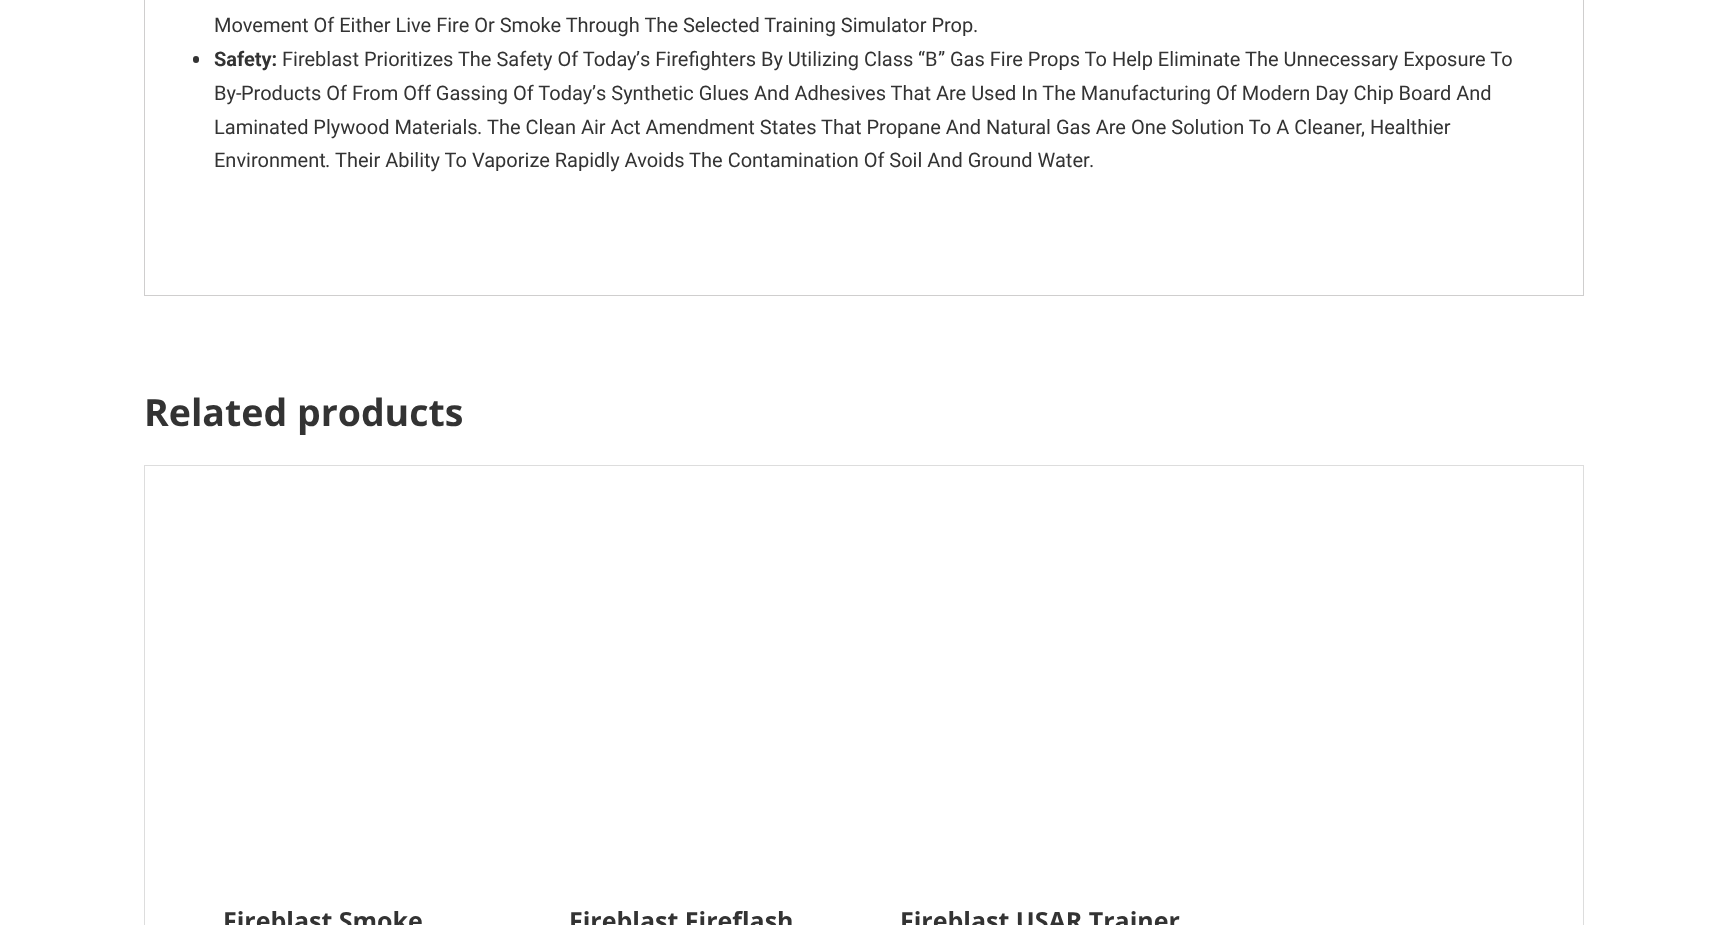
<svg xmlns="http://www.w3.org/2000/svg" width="1727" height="925">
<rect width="100%" height="100%" fill="#fff"/>
<rect x="144.5" y="-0.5" width="1439" height="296" fill="none" stroke="#cfcece"/>
<text x="214" y="32" style="font-family:Roboto;font-size:20px;fill:#333">Movement Of Either Live Fire Or Smoke Through The Selected Training Simulator Prop</text>
<text x="973" y="32" style="font-family:'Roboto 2';font-size:20px;fill:#333">.</text>
<rect x="193" y="56" width="6" height="7" rx="3" fill="#333"/>
<text x="214" y="66" style="font-family:Roboto;font-size:20px;font-weight:bold;fill:#333">Safety:</text>
<text x="282" y="66" style="font-family:Roboto;font-size:20px;fill:#333">Fireblast Prioritizes The Safety Of Today</text>
<text x="636" y="66" style="font-family:'Roboto 2';font-size:20px;fill:#333">’</text>
<text x="640" y="66" style="font-family:Roboto;font-size:20px;fill:#333">s Firefighters By Utilizing Class</text>
<text x="918" y="66" style="font-family:'Roboto 2';font-size:20px;fill:#333">“</text>
<text x="925" y="66" style="font-family:Roboto;font-size:20px;fill:#333">B</text>
<text x="938" y="66" style="font-family:'Roboto 2';font-size:20px;fill:#333">”</text>
<text x="950" y="66" style="font-family:Roboto;font-size:20px;fill:#333">Gas Fire Props To Help Eliminate The Unnecessary Exposure To</text>
<text x="214" y="100" style="font-family:Roboto;font-size:20px;fill:#333">By</text>
<text x="241" y="100" style="font-family:Roboto;font-size:20px;fill:#333">Products Of From Off Gassing Of Today</text>
<text x="592" y="100" style="font-family:'Roboto 2';font-size:20px;fill:#333">’</text>
<text x="596" y="100" style="font-family:Roboto;font-size:20px;fill:#333">s Synthetic Glues And Adhesives That Are Used In The Manufacturing Of Modern Day Chip Board And</text>
<text x="236" y="100" style="font-family:'Roboto 2';font-size:20px;fill:#333">-</text>
<text x="214" y="134" style="font-family:Roboto;font-size:20px;fill:#333">Laminated Plywood Materials</text>
<text x="477" y="134" style="font-family:'Roboto 2';font-size:20px;fill:#333">.</text>
<text x="487" y="134" style="font-family:Roboto;font-size:20px;fill:#333">The Clean Air Act Amendment States That Propane And Natural Gas Are One Solution To A Cleaner</text>
<text x="1361" y="134" style="font-family:'Roboto 2';font-size:20px;fill:#333">,</text>
<text x="1370" y="134" style="font-family:Roboto;font-size:20px;fill:#333">Healthier</text>
<text x="214" y="167" style="font-family:Roboto;font-size:20px;fill:#333">Environment</text>
<text x="325" y="167" style="font-family:'Roboto 2';font-size:20px;fill:#333">.</text>
<text x="335" y="167" style="font-family:Roboto;font-size:20px;fill:#333">Their Ability To Vaporize Rapidly Avoids The Contamination Of Soil And Ground Water</text>
<text x="1089" y="167" style="font-family:'Roboto 2';font-size:20px;fill:#333">.</text>
<text x="144" y="426" style="font-family:Open Sans;font-size:37.5px;font-weight:bold;fill:#333">Related products</text>
<rect x="144.5" y="465.5" width="1439" height="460" fill="none" stroke="#ddd"/>
<text x="223" y="930" style="font-family:Open Sans;font-size:25px;font-weight:bold;fill:#333">Fireblast Smoke</text>
<text x="569" y="930" style="font-family:Open Sans;font-size:25px;font-weight:bold;fill:#333">Fireblast Fireflash</text>
<text x="900" y="930" style="font-family:Open Sans;font-size:25px;font-weight:bold;fill:#333">Fireblast USAR Trainer</text>
</svg>
